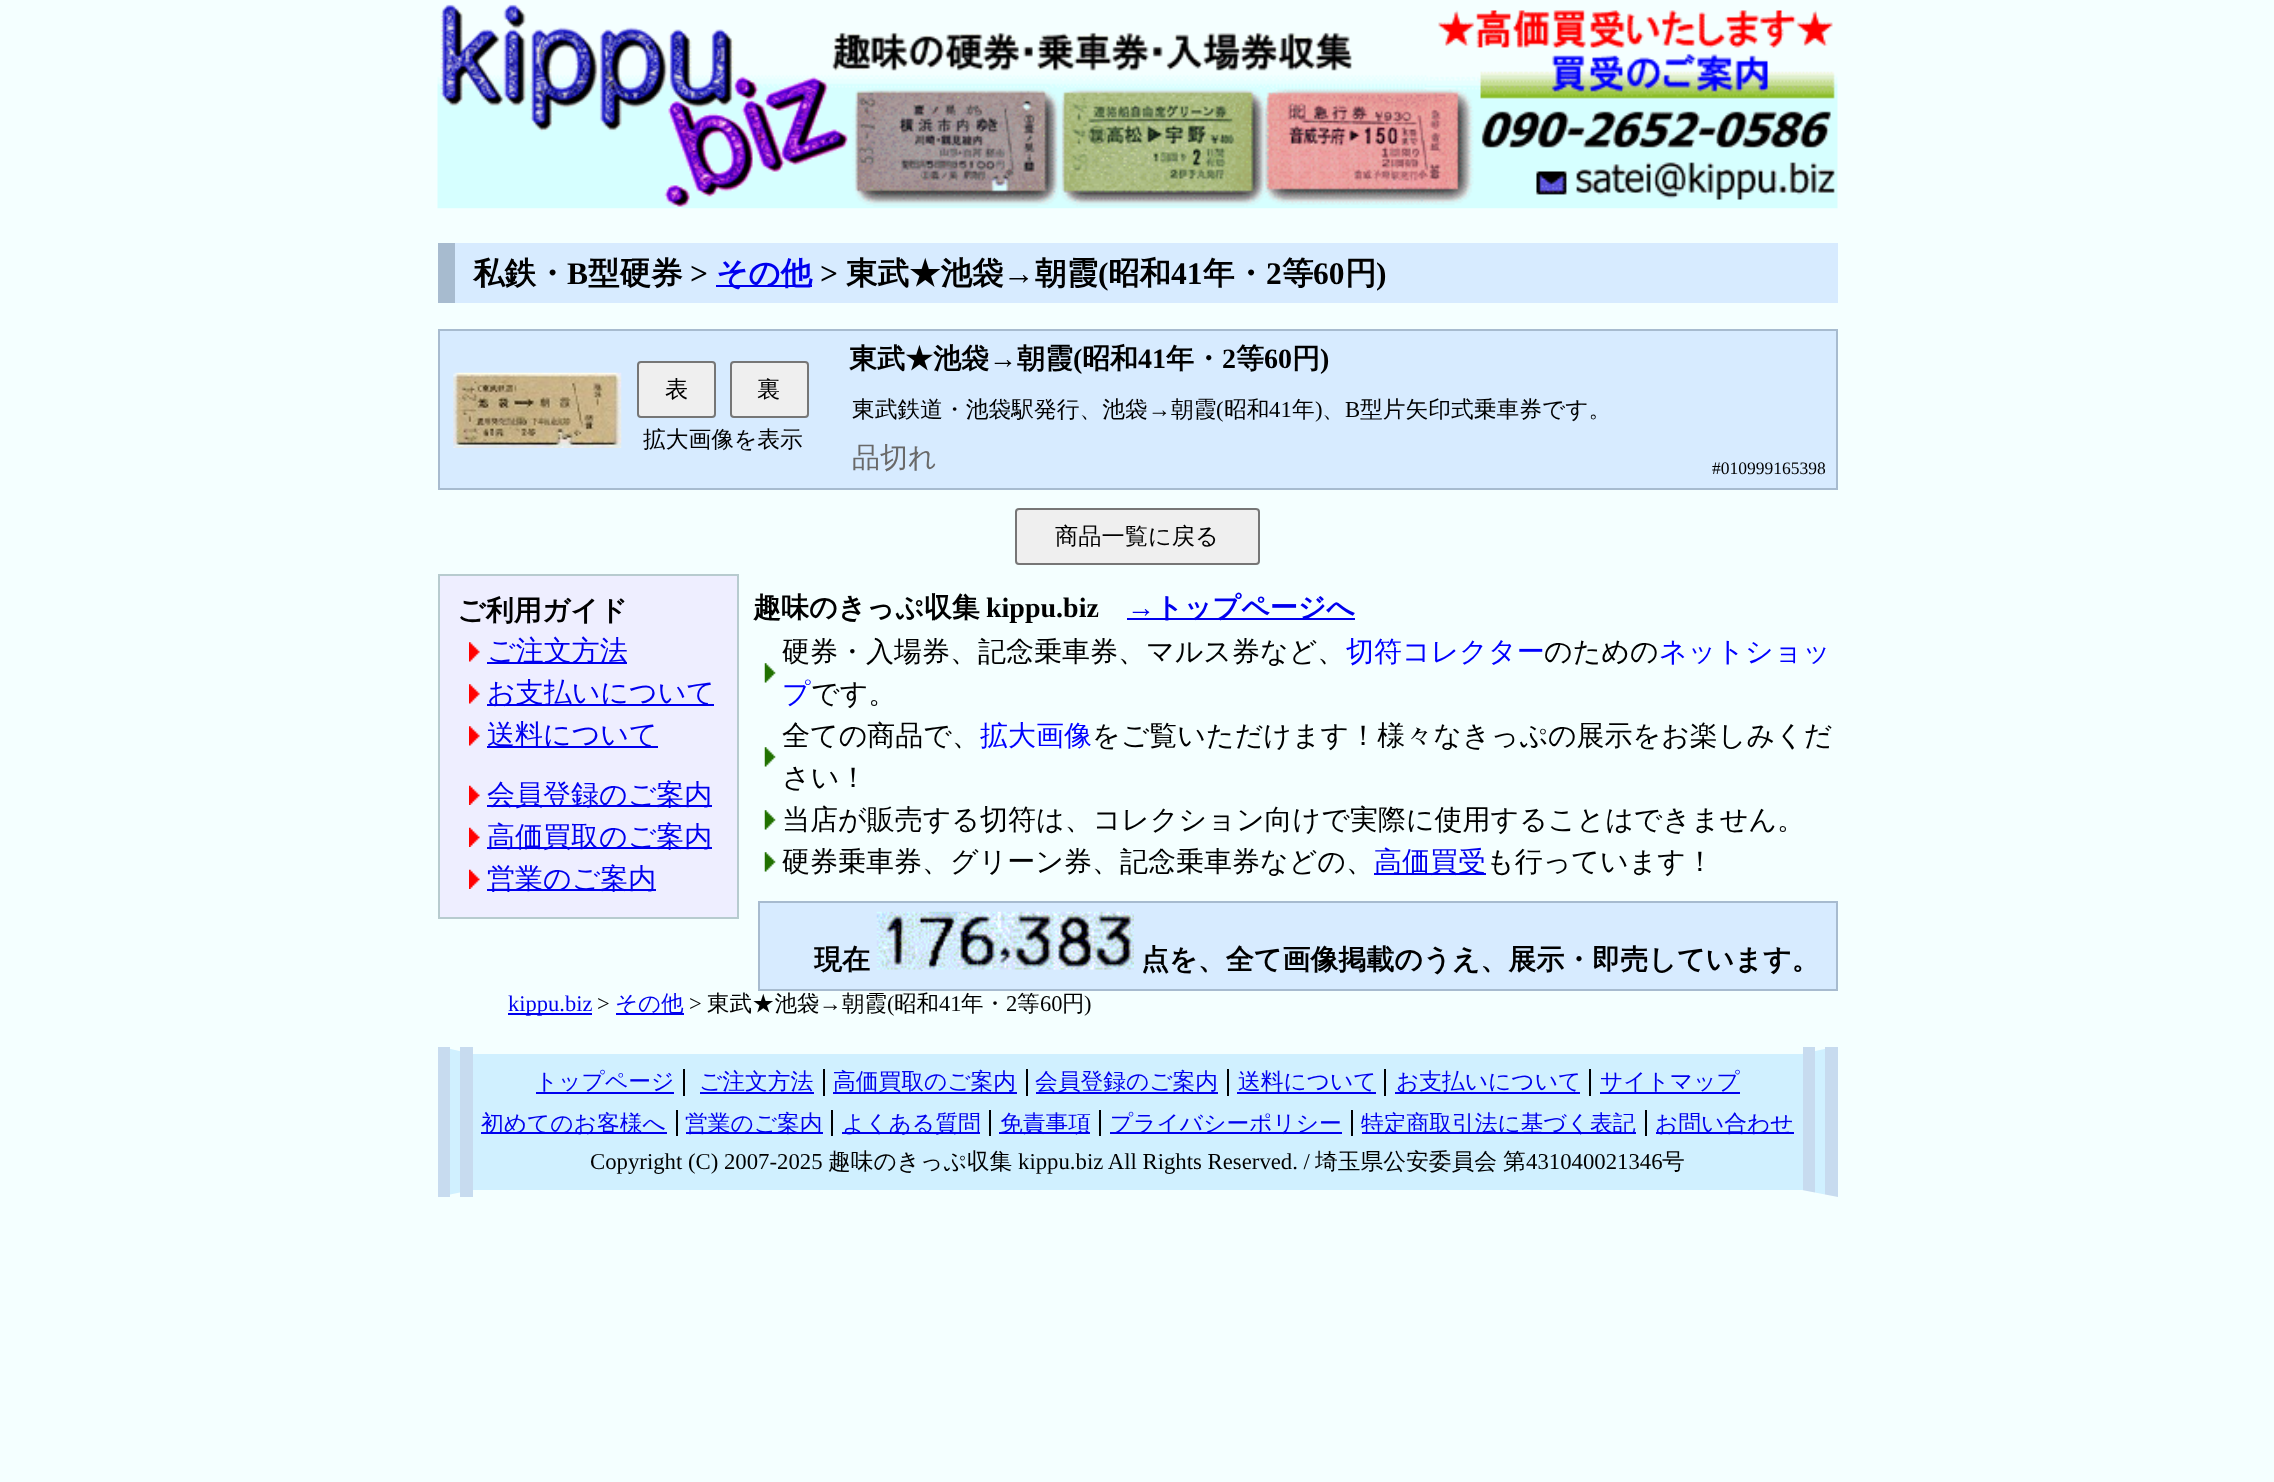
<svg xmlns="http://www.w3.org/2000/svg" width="2274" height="1482">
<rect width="100%" height="100%" fill="#f4ffff"/>
<image x="437" y="4" width="1401" height="205" href="media/1.png"/>
<rect x="455" y="243" width="1383" height="60" fill="#d7ebff"/>
<rect x="438" y="243" width="17" height="60" fill="#a7bbcf"/>
<text x="473" y="284" style="font-family:WenQuanYi Zen Hei;font-size:31.5px;font-weight:bold;fill:#000">私鉄・</text>
<text x="567" y="284" style="font-family:Liberation Serif;font-size:31.5px;font-weight:bold;fill:#000">B</text>
<text x="588" y="284" style="font-family:WenQuanYi Zen Hei;font-size:31.5px;font-weight:bold;fill:#000">型硬券</text>
<text x="690" y="284" style="font-family:Liberation Serif;font-size:31.5px;font-weight:bold;fill:#000">&gt;</text>
<rect x="716" y="285" width="96" height="2" fill="#00e"/>
<text x="716" y="284" style="font-family:WenQuanYi Zen Hei;font-size:31.5px;font-weight:bold;fill:#00e">その他</text>
<text x="820" y="284" style="font-family:Liberation Serif;font-size:31.5px;font-weight:bold;fill:#000">&gt;</text>
<text x="846" y="284" style="font-family:WenQuanYi Zen Hei;font-size:31.5px;font-weight:bold;fill:#000">東武★池袋</text>
<text x="1003" y="284" style="font-family:Liberation Serif;font-size:31.5px;font-weight:bold;fill:#000">→</text>
<text x="1035" y="284" style="font-family:WenQuanYi Zen Hei;font-size:31.5px;font-weight:bold;fill:#000">朝霞</text>
<text x="1098" y="284" style="font-family:Liberation Serif;font-size:31.5px;font-weight:bold;fill:#000">(</text>
<text x="1108" y="284" style="font-family:WenQuanYi Zen Hei;font-size:31.5px;font-weight:bold;fill:#000">昭和</text>
<text x="1171" y="284" style="font-family:Liberation Serif;font-size:31.5px;font-weight:bold;fill:#000">41</text>
<text x="1203" y="284" style="font-family:WenQuanYi Zen Hei;font-size:31.5px;font-weight:bold;fill:#000">年・</text>
<text x="1266" y="284" style="font-family:Liberation Serif;font-size:31.5px;font-weight:bold;fill:#000">2</text>
<text x="1282" y="284" style="font-family:WenQuanYi Zen Hei;font-size:31.5px;font-weight:bold;fill:#000">等</text>
<text x="1313" y="284" style="font-family:Liberation Serif;font-size:31.5px;font-weight:bold;fill:#000">60</text>
<text x="1345" y="284" style="font-family:WenQuanYi Zen Hei;font-size:31.5px;font-weight:bold;fill:#000">円</text>
<text x="1376" y="284" style="font-family:Liberation Serif;font-size:31.5px;font-weight:bold;fill:#000">)</text>
<rect x="439" y="330" width="1398" height="159" fill="#d7ebff" stroke="#a7bbcf" stroke-width="2"/>
<text x="849" y="368" style="font-family:WenQuanYi Zen Hei;font-size:28px;font-weight:bold;fill:#000">東武★池袋</text>
<text x="989" y="368" style="font-family:Liberation Serif;font-size:28px;font-weight:bold;fill:#000">→</text>
<text x="1017" y="368" style="font-family:WenQuanYi Zen Hei;font-size:28px;font-weight:bold;fill:#000">朝霞</text>
<text x="1073" y="368" style="font-family:Liberation Serif;font-size:28px;font-weight:bold;fill:#000">(</text>
<text x="1082" y="368" style="font-family:WenQuanYi Zen Hei;font-size:28px;font-weight:bold;fill:#000">昭和</text>
<text x="1138" y="368" style="font-family:Liberation Serif;font-size:28px;font-weight:bold;fill:#000">41</text>
<text x="1166" y="368" style="font-family:WenQuanYi Zen Hei;font-size:28px;font-weight:bold;fill:#000">年・</text>
<text x="1222" y="368" style="font-family:Liberation Serif;font-size:28px;font-weight:bold;fill:#000">2</text>
<text x="1236" y="368" style="font-family:WenQuanYi Zen Hei;font-size:28px;font-weight:bold;fill:#000">等</text>
<text x="1264" y="368" style="font-family:Liberation Serif;font-size:28px;font-weight:bold;fill:#000">60</text>
<text x="1292" y="368" style="font-family:WenQuanYi Zen Hei;font-size:28px;font-weight:bold;fill:#000">円</text>
<text x="1320" y="368" style="font-family:Liberation Serif;font-size:28px;font-weight:bold;fill:#000">)</text>
<image x="453" y="372" width="169" height="76" href="media/2.png"/>
<rect x="638" y="362" width="77" height="55" rx="3" fill="#efefef" stroke="#767676" stroke-width="2"/>
<text x="665" y="397" style="font-family:WenQuanYi Zen Hei;font-size:23.25px;font-weight:500;fill:#000">表</text>
<rect x="731" y="362" width="77" height="55" rx="3" fill="#efefef" stroke="#767676" stroke-width="2"/>
<text x="757" y="397" style="font-family:WenQuanYi Zen Hei;font-size:23.25px;font-weight:500;fill:#000">裏</text>
<text x="643" y="447" style="font-family:WenQuanYi Zen Hei;font-size:22.75px;font-weight:500;fill:#000">拡大画像を表示</text>
<text x="852" y="417" style="font-family:WenQuanYi Zen Hei;font-size:22.75px;font-weight:500;fill:#000">東武鉄道・池袋駅発行、池袋</text>
<text x="1148" y="417" style="font-family:Liberation Serif;font-size:22.75px;fill:#000">→</text>
<text x="1171" y="417" style="font-family:WenQuanYi Zen Hei;font-size:22.75px;font-weight:500;fill:#000">朝霞</text>
<text x="1216" y="417" style="font-family:Liberation Serif;font-size:22.75px;fill:#000">(</text>
<text x="1224" y="417" style="font-family:WenQuanYi Zen Hei;font-size:22.75px;font-weight:500;fill:#000">昭和</text>
<text x="1269" y="417" style="font-family:Liberation Serif;font-size:22.75px;fill:#000">41</text>
<text x="1292" y="417" style="font-family:WenQuanYi Zen Hei;font-size:22.75px;font-weight:500;fill:#000">年</text>
<text x="1315" y="417" style="font-family:Liberation Serif;font-size:22.75px;fill:#000">)</text>
<text x="1345" y="417" style="font-family:Liberation Serif;font-size:22.75px;fill:#000">B</text>
<text x="1360" y="417" style="font-family:WenQuanYi Zen Hei;font-size:22.75px;font-weight:500;fill:#000">型片矢印式乗車券です。</text>
<text x="1322" y="417" style="font-family:WenQuanYi Zen Hei;font-size:22.75px;font-weight:500;fill:#000">、</text>
<text x="852" y="467" style="font-family:WenQuanYi Zen Hei;font-size:28px;font-weight:500;fill:#696969">品切れ</text>
<text x="1712" y="474" style="font-family:Liberation Serif;font-size:17.5px;fill:#000">#010999165398</text>
<rect x="1016" y="509" width="243" height="55" rx="3" fill="#efefef" stroke="#767676" stroke-width="2"/>
<text x="1055" y="544" style="font-family:WenQuanYi Zen Hei;font-size:23.25px;font-weight:500;fill:#000">商品一覧に戻る</text>
<rect x="439" y="575" width="299" height="343" fill="#eef" stroke="#b7cbcf" stroke-width="2"/>
<text x="457" y="620" style="font-family:WenQuanYi Zen Hei;font-size:28px;font-weight:bold;fill:#000">ご利用ガイド</text>
<image x="469" y="642" width="11" height="20" href="media/3.png"/>
<rect x="487" y="662" width="140" height="2" fill="#00e"/>
<text x="487" y="660" style="font-family:WenQuanYi Zen Hei;font-size:28px;font-weight:500;fill:#00e">ご注文方法</text>
<image x="469" y="684" width="11" height="20" href="media/3.png"/>
<rect x="487" y="704" width="227" height="2" fill="#00e"/>
<text x="487" y="702" style="font-family:WenQuanYi Zen Hei;font-size:28px;font-weight:500;fill:#00e">お支払いについて</text>
<image x="469" y="726" width="11" height="20" href="media/3.png"/>
<rect x="487" y="746" width="171" height="2" fill="#00e"/>
<text x="487" y="744" style="font-family:WenQuanYi Zen Hei;font-size:28px;font-weight:500;fill:#00e">送料について</text>
<image x="469" y="785" width="11" height="20" href="media/4.png"/>
<rect x="487" y="805" width="225" height="2" fill="#00e"/>
<text x="487" y="804" style="font-family:WenQuanYi Zen Hei;font-size:28px;font-weight:500;fill:#00e">会員登録のご案内</text>
<image x="469" y="827" width="11" height="20" href="media/4.png"/>
<rect x="487" y="847" width="225" height="2" fill="#00e"/>
<text x="487" y="846" style="font-family:WenQuanYi Zen Hei;font-size:28px;font-weight:500;fill:#00e">高価買取のご案内</text>
<image x="469" y="869" width="11" height="20" href="media/4.png"/>
<rect x="487" y="889" width="169" height="2" fill="#00e"/>
<text x="487" y="888" style="font-family:WenQuanYi Zen Hei;font-size:28px;font-weight:500;fill:#00e">営業のご案内</text>
<text x="753" y="617" style="font-family:WenQuanYi Zen Hei;font-size:28px;font-weight:bold;fill:#000">趣味のきっぷ収集</text>
<text x="986" y="617" style="font-family:Liberation Serif;font-size:28px;font-weight:bold;fill:#000">kippu.biz</text>
<text x="1127" y="617" style="font-family:Liberation Serif;font-size:28px;font-weight:bold;fill:#00e">→</text>
<rect x="1127" y="618" width="228" height="2" fill="#00e"/>
<text x="1155" y="617" style="font-family:WenQuanYi Zen Hei;font-size:28px;font-weight:bold;fill:#00e">トップページへ</text>
<image x="764" y="663" width="12" height="20" href="media/5.png"/>
<text x="782" y="661" style="font-family:WenQuanYi Zen Hei;font-size:28px;font-weight:500;fill:#000">硬券・入場券、記念乗車券、マルス券など、</text>
<text x="1346" y="661" style="font-family:WenQuanYi Zen Hei;font-size:28px;font-weight:500;fill:#00f">切符コレクター</text>
<text x="1544" y="661" style="font-family:WenQuanYi Zen Hei;font-size:28px;font-weight:500;fill:#000">のための</text>
<text x="1659" y="661" style="font-family:WenQuanYi Zen Hei;font-size:28px;font-weight:500;fill:#00f">ネットショッ</text>
<text x="782" y="703" style="font-family:WenQuanYi Zen Hei;font-size:28px;font-weight:500;fill:#00f">プ</text>
<text x="811" y="703" style="font-family:WenQuanYi Zen Hei;font-size:28px;font-weight:500;fill:#000">です。</text>
<image x="764" y="747" width="12" height="20" href="media/5.png"/>
<text x="782" y="745" style="font-family:WenQuanYi Zen Hei;font-size:28px;font-weight:500;fill:#000">全ての商品で、</text>
<text x="980" y="745" style="font-family:WenQuanYi Zen Hei;font-size:28px;font-weight:500;fill:#00f">拡大画像</text>
<text x="1092" y="745" style="font-family:WenQuanYi Zen Hei;font-size:28px;font-weight:500;fill:#000">をご覧いただけます！様々なきっぷの展示をお楽しみくだ</text>
<text x="782" y="787" style="font-family:WenQuanYi Zen Hei;font-size:28px;font-weight:500;fill:#000">さい！</text>
<image x="764" y="810" width="12" height="20" href="media/5.png"/>
<text x="782" y="829" style="font-family:WenQuanYi Zen Hei;font-size:28px;font-weight:500;fill:#000">当店が販売する切符は、コレクション向けで実際に使用することはできません。</text>
<image x="764" y="852" width="12" height="20" href="media/5.png"/>
<text x="782" y="871" style="font-family:WenQuanYi Zen Hei;font-size:28px;font-weight:500;fill:#000">硬券乗車券、グリーン券、記念乗車券などの、</text>
<rect x="1374" y="873" width="112" height="2" fill="#00e"/>
<text x="1374" y="871" style="font-family:WenQuanYi Zen Hei;font-size:28px;font-weight:500;fill:#00e">高価買受</text>
<text x="1486" y="871" style="font-family:WenQuanYi Zen Hei;font-size:28px;font-weight:500;fill:#000">も行っています！</text>
<rect x="759" y="902" width="1078" height="88" fill="#d7ebff" stroke="#a7bbcf" stroke-width="2"/>
<text x="814" y="969" style="font-family:WenQuanYi Zen Hei;font-size:28px;font-weight:bold;fill:#000">現在</text>
<image x="876" y="911" width="258" height="59" href="media/6.png"/>
<text x="1141" y="969" style="font-family:WenQuanYi Zen Hei;font-size:28px;font-weight:bold;fill:#000">点を、全て画像掲載のうえ、展示・即売しています。</text>
<rect x="508" y="1013" width="84" height="2" fill="#00e"/>
<text x="508" y="1011" style="font-family:Liberation Serif;font-size:22.5px;fill:#00e">kippu.biz</text>
<text x="597" y="1011" style="font-family:Liberation Serif;font-size:22.5px;fill:#000">&gt;</text>
<rect x="616" y="1013" width="68" height="2" fill="#00e"/>
<text x="615" y="1011" style="font-family:WenQuanYi Zen Hei;font-size:22.5px;font-weight:500;fill:#00e">その他</text>
<text x="689" y="1011" style="font-family:Liberation Serif;font-size:22.5px;fill:#000">&gt;</text>
<text x="707" y="1011" style="font-family:WenQuanYi Zen Hei;font-size:22.5px;font-weight:500;fill:#000">東武★池袋</text>
<text x="819" y="1011" style="font-family:Liberation Serif;font-size:22.5px;fill:#000">→</text>
<text x="842" y="1011" style="font-family:WenQuanYi Zen Hei;font-size:22.5px;font-weight:500;fill:#000">朝霞</text>
<text x="887" y="1011" style="font-family:Liberation Serif;font-size:22.5px;fill:#000">(</text>
<text x="894" y="1011" style="font-family:WenQuanYi Zen Hei;font-size:22.5px;font-weight:500;fill:#000">昭和</text>
<text x="939" y="1011" style="font-family:Liberation Serif;font-size:22.5px;fill:#000">41</text>
<text x="961" y="1011" style="font-family:WenQuanYi Zen Hei;font-size:22.5px;font-weight:500;fill:#000">年・</text>
<text x="1006" y="1011" style="font-family:Liberation Serif;font-size:22.5px;fill:#000">2</text>
<text x="1017" y="1011" style="font-family:WenQuanYi Zen Hei;font-size:22.5px;font-weight:500;fill:#000">等</text>
<text x="1040" y="1011" style="font-family:Liberation Serif;font-size:22.5px;fill:#000">60</text>
<text x="1062" y="1011" style="font-family:WenQuanYi Zen Hei;font-size:22.5px;font-weight:500;fill:#000">円</text>
<text x="1084" y="1011" style="font-family:Liberation Serif;font-size:22.5px;fill:#000">)</text>
<rect x="450" y="1048" width="1375" height="147" fill="#d0f0ff"/>
<path d="M438 1046h1400l-36 8h-1330z" fill="#f4ffff"/>
<rect x="1803" y="1047" width="12" height="146" fill="#c7dbef"/>
<rect x="1825" y="1047" width="13" height="150" fill="#c7dbef"/>
<path d="M1838 1197h-1400l34-7h1330z" fill="#f4ffff"/>
<rect x="438" y="1047" width="12" height="150" fill="#c7dbef"/>
<rect x="460" y="1047" width="13" height="150" fill="#c7dbef"/>
<text x="535" y="1089" style="font-family:WenQuanYi Zen Hei;font-size:22.75px;font-weight:500;fill:#00e">トップページ</text>
<rect x="683" y="1069" width="2" height="27" fill="#000"/>
<rect x="536" y="1092" width="138" height="2" fill="#00e"/>
<text x="699" y="1089" style="font-family:WenQuanYi Zen Hei;font-size:22.75px;font-weight:500;fill:#00e">ご注文方法</text>
<rect x="823" y="1069" width="2" height="27" fill="#000"/>
<rect x="700" y="1092" width="114" height="2" fill="#00e"/>
<rect x="833" y="1092" width="184" height="2" fill="#00e"/>
<text x="833" y="1089" style="font-family:WenQuanYi Zen Hei;font-size:22.75px;font-weight:500;fill:#00e">高価買取のご案内</text>
<rect x="1026" y="1069" width="2" height="27" fill="#000"/>
<rect x="1036" y="1092" width="182" height="2" fill="#00e"/>
<text x="1035" y="1089" style="font-family:WenQuanYi Zen Hei;font-size:22.75px;font-weight:500;fill:#00e">会員登録のご案内</text>
<rect x="1227" y="1069" width="2" height="27" fill="#000"/>
<text x="1238" y="1089" style="font-family:WenQuanYi Zen Hei;font-size:22.75px;font-weight:500;fill:#00e">送料について</text>
<rect x="1384" y="1069" width="2" height="27" fill="#000"/>
<rect x="1237" y="1092" width="139" height="2" fill="#00e"/>
<rect x="1395" y="1092" width="185" height="2" fill="#00e"/>
<text x="1396" y="1089" style="font-family:WenQuanYi Zen Hei;font-size:22.75px;font-weight:500;fill:#00e">お支払いについて</text>
<rect x="1589" y="1069" width="2" height="27" fill="#000"/>
<rect x="1600" y="1092" width="140" height="2" fill="#00e"/>
<text x="1600" y="1089" style="font-family:WenQuanYi Zen Hei;font-size:22.75px;font-weight:500;fill:#00e">サイトマップ</text>
<rect x="481" y="1132" width="186" height="2" fill="#00e"/>
<text x="481" y="1131" style="font-family:WenQuanYi Zen Hei;font-size:22.75px;font-weight:500;fill:#00e">初めてのお客様へ</text>
<rect x="676" y="1110" width="2" height="26" fill="#000"/>
<rect x="686" y="1132" width="137" height="2" fill="#00e"/>
<text x="685" y="1131" style="font-family:WenQuanYi Zen Hei;font-size:22.75px;font-weight:500;fill:#00e">営業のご案内</text>
<rect x="831" y="1110" width="2" height="26" fill="#000"/>
<rect x="842" y="1132" width="138" height="2" fill="#00e"/>
<text x="842" y="1131" style="font-family:WenQuanYi Zen Hei;font-size:22.75px;font-weight:500;fill:#00e">よくある質問</text>
<rect x="989" y="1110" width="2" height="26" fill="#000"/>
<rect x="999" y="1132" width="91" height="2" fill="#00e"/>
<text x="1000" y="1131" style="font-family:WenQuanYi Zen Hei;font-size:22.75px;font-weight:500;fill:#00e">免責事項</text>
<rect x="1099" y="1110" width="2" height="26" fill="#000"/>
<rect x="1110" y="1132" width="232" height="2" fill="#00e"/>
<text x="1110" y="1131" style="font-family:WenQuanYi Zen Hei;font-size:22.75px;font-weight:500;fill:#00e">プライバシーポリシー</text>
<rect x="1351" y="1110" width="2" height="26" fill="#000"/>
<rect x="1362" y="1132" width="274" height="2" fill="#00e"/>
<text x="1361" y="1131" style="font-family:WenQuanYi Zen Hei;font-size:22.75px;font-weight:500;fill:#00e">特定商取引法に基づく表記</text>
<rect x="1645" y="1110" width="2" height="26" fill="#000"/>
<rect x="1656" y="1132" width="138" height="2" fill="#00e"/>
<text x="1655" y="1131" style="font-family:WenQuanYi Zen Hei;font-size:22.75px;font-weight:500;fill:#00e">お問い合わせ</text>
<text x="590" y="1169" style="font-family:Liberation Serif;font-size:22.75px;fill:#000">Copyright (C) 2007-2025</text>
<text x="828" y="1169" style="font-family:WenQuanYi Zen Hei;font-size:22.75px;font-weight:500;fill:#000">趣味のきっぷ収集</text>
<text x="1018" y="1169" style="font-family:Liberation Serif;font-size:22.75px;fill:#000">kippu.biz All Rights Reserved. /</text>
<text x="1315" y="1169" style="font-family:WenQuanYi Zen Hei;font-size:22.75px;font-weight:500;fill:#000">埼玉県公安委員会</text>
<text x="1503" y="1169" style="font-family:WenQuanYi Zen Hei;font-size:22.75px;font-weight:500;fill:#000">第</text>
<text x="1526" y="1169" style="font-family:Liberation Serif;font-size:22.75px;fill:#000">431040021346</text>
<text x="1662" y="1169" style="font-family:WenQuanYi Zen Hei;font-size:22.75px;font-weight:500;fill:#000">号</text>
</svg>
